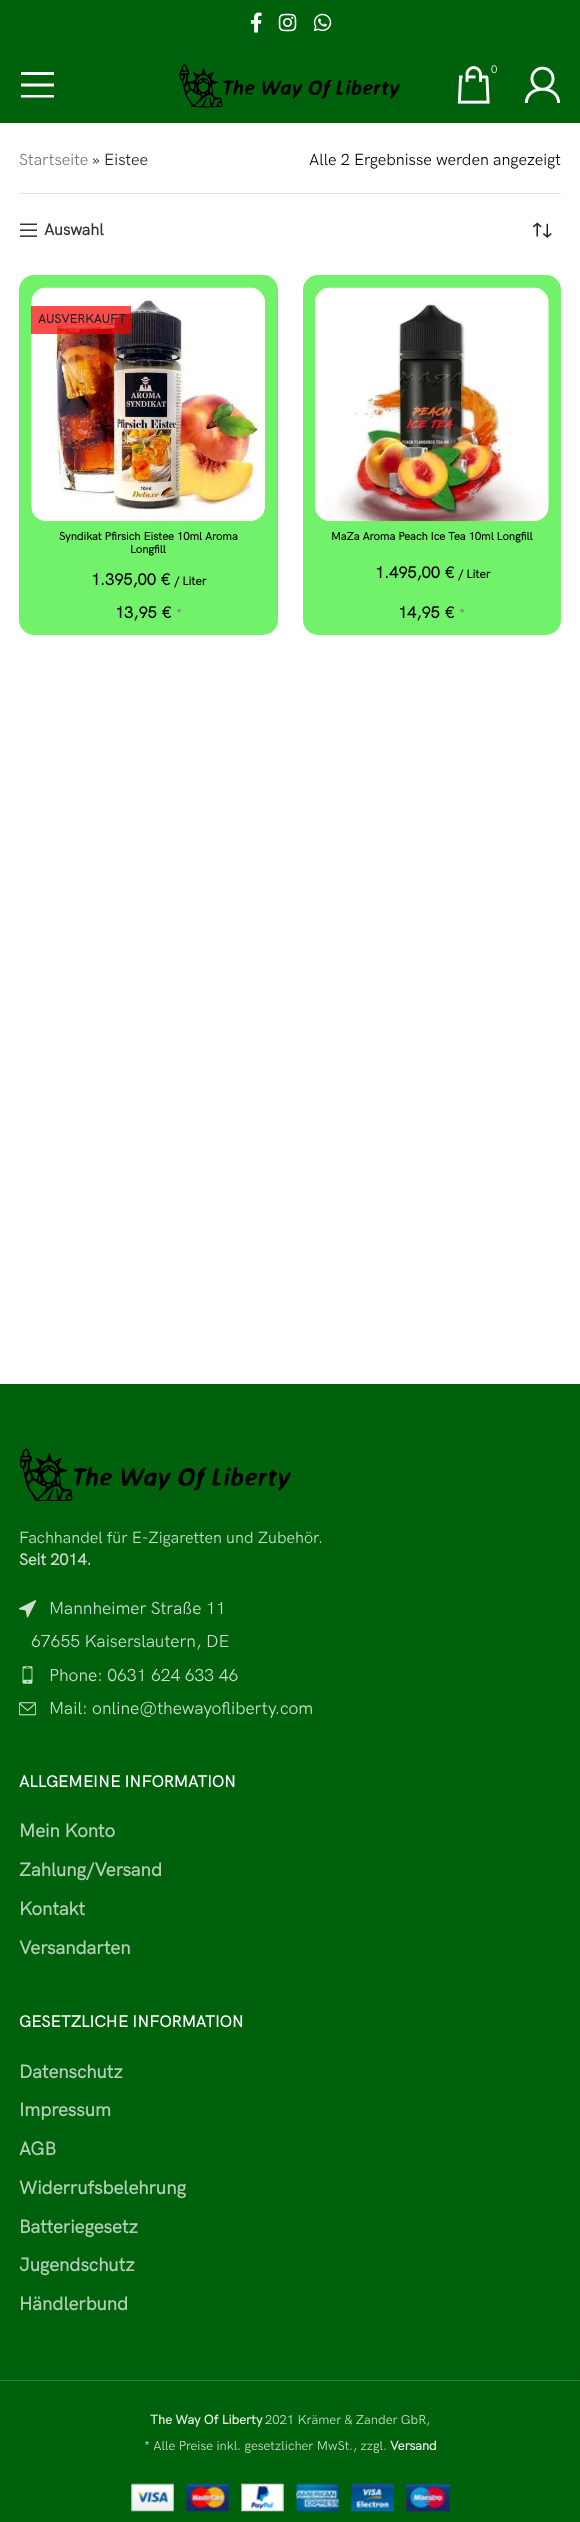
<svg xmlns="http://www.w3.org/2000/svg" width="580" height="2522">
<rect width="100%" height="100%" fill="#fff"/>
<rect width="580" height="123" fill="#00610d"/>
<image x="250" y="12" width="12" height="21" href="media/1.png"/>
<image x="278" y="13" width="19" height="19" href="media/2.png"/>
<image x="313" y="13" width="19" height="19" href="media/3.png"/>
<image x="179" y="63" width="221" height="45" href="media/4.png"/>
<image x="457" y="66" width="33" height="38" href="media/5.png"/>
<circle cx="494.5" cy="69.5" r="9.5" fill="#00610d"/>
<text x="491" y="73" style="font-family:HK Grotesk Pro;font-size:11.25px;fill:#fff">0</text>
<image x="524" y="66" width="37" height="37" href="media/6.png"/>
<path d="M21 75h33v-3h-33zm0 11.5h33v-3h-33zm0 11h33v-2.5h-33z" fill="#fff"/>
<rect x="19" y="193" width="542" height="1" fill="#e4e4e4"/>
<text x="19" y="165" style="font-family:HK Grotesk Pro;font-size:16.25px;fill:#767676">Startseite</text>
<text x="92" y="165" style="font-family:HK Grotesk Pro;font-size:16.25px;fill:#000">»</text>
<text x="104" y="165" style="font-family:HK Grotesk Pro;font-size:16.25px;fill:#242424">Eistee</text>
<text x="309" y="165" style="font-family:HK Grotesk Pro;font-size:16.25px;fill:#000">Alle 2 Ergebnisse werden angezeigt</text>
<image x="19" y="223" width="19" height="14" href="media/7.png"/>
<text x="44" y="235" style="font-family:HK Grotesk Pro;font-size:16.25px;font-weight:bold;fill:#333">Auswahl</text>
<image x="532" y="222" width="20" height="16" href="media/8.png"/>
<rect x="19" y="275" width="259" height="360" rx="15" fill="#72f26b"/>
<image x="31" y="287" width="234" height="235" href="media/9.png"/>
<rect x="31" y="306" width="100" height="28" fill="#f70202b3"/>
<text x="38" y="323" style="font-family:HK Grotesk Pro;font-size:12.5px;font-weight:bold;fill:#242424">AUSVERKAUFT</text>
<text x="59" y="540" style="font-family:HK Grotesk Pro;font-size:11.25px;font-weight:bold;fill:#000">Syndikat Pfirsich Eistee 10ml Aroma</text>
<text x="130" y="553" style="font-family:HK Grotesk Pro;font-size:11.25px;font-weight:bold;fill:#000">Longfill</text>
<text x="91" y="585" style="font-family:HK Grotesk Pro;font-size:16.25px;font-weight:bold;fill:#000">1.395,00</text>
<text x="160" y="585" style="font-family:HK Grotesk Pro;font-size:16.25px;font-weight:bold;fill:#000">€</text>
<text x="174" y="585" style="font-family:HK Grotesk Pro;font-size:12px;font-weight:bold;fill:#000">/ Liter</text>
<text x="115" y="618" style="font-family:HK Grotesk Pro;font-size:16.25px;font-weight:bold;fill:#000">13,95</text>
<text x="161" y="618" style="font-family:HK Grotesk Pro;font-size:16.25px;font-weight:bold;fill:#000">€</text>
<text x="176" y="618" style="font-family:HK Grotesk Pro;font-size:13px;font-weight:bold;fill:#759973">*</text>
<rect x="303" y="275" width="258" height="360" rx="15" fill="#72f26b"/>
<image x="315" y="287" width="234" height="235" href="media/10.png"/>
<text x="331" y="540" style="font-family:HK Grotesk Pro;font-size:11.25px;font-weight:bold;fill:#000">MaZa Aroma Peach Ice Tea 10ml Longfill</text>
<text x="375" y="578" style="font-family:HK Grotesk Pro;font-size:16.25px;font-weight:bold;fill:#000">1.495,00</text>
<text x="444" y="578" style="font-family:HK Grotesk Pro;font-size:16.25px;font-weight:bold;fill:#000">€</text>
<text x="458" y="578" style="font-family:HK Grotesk Pro;font-size:12px;font-weight:bold;fill:#000">/ Liter</text>
<text x="398" y="618" style="font-family:HK Grotesk Pro;font-size:16.25px;font-weight:bold;fill:#000">14,95</text>
<text x="444" y="618" style="font-family:HK Grotesk Pro;font-size:16.25px;font-weight:bold;fill:#000">€</text>
<text x="459" y="618" style="font-family:HK Grotesk Pro;font-size:13px;font-weight:bold;fill:#759973">*</text>
<rect y="1384" width="580" height="1138" fill="#00610d"/>
<image x="19" y="1448" width="272" height="53" href="media/11.png"/>
<text x="19" y="1543" style="font-family:HK Grotesk Pro;font-size:16.25px;fill:#ccdfcf">Fachhandel für E-Zigaretten und Zubehör.</text>
<text x="19" y="1565" style="font-family:HK Grotesk Pro;font-size:16.25px;font-weight:bold;fill:#ccdfcf">Seit 2014.</text>
<image x="19" y="1600" width="17" height="18" href="media/12.png"/>
<text x="49" y="1614" style="font-family:HK Grotesk Pro;font-size:17.5px;fill:#ccdfcf">Mannheimer Straße 11</text>
<text x="31" y="1647" style="font-family:HK Grotesk Pro;font-size:17.5px;fill:#ccdfcf">67655 Kaiserslautern, DE</text>
<image x="22" y="1666" width="11" height="18" href="media/13.png"/>
<text x="49" y="1681" style="font-family:HK Grotesk Pro;font-size:17.5px;fill:#ccdfcf">Phone: 0631 624 633 46</text>
<image x="19" y="1702" width="17" height="14" href="media/14.png"/>
<text x="49" y="1714" style="font-family:HK Grotesk Pro;font-size:17.5px;fill:#ccdfcf">Mail: online@thewayofliberty.com</text>
<text x="19" y="1787" style="font-family:HK Grotesk Pro;font-size:16.25px;font-weight:bold;fill:#fff">ALLGEMEINE INFORMATION</text>
<text x="19" y="1837" style="font-family:HK Grotesk Pro;font-size:18.75px;font-weight:bold;fill:#b3d0b6">Mein Konto</text>
<text x="19" y="1876" style="font-family:HK Grotesk Pro;font-size:18.75px;font-weight:bold;fill:#b3d0b6">Zahlung/Versand</text>
<text x="19" y="1915" style="font-family:HK Grotesk Pro;font-size:18.75px;font-weight:bold;fill:#b3d0b6">Kontakt</text>
<text x="19" y="1954" style="font-family:HK Grotesk Pro;font-size:18.75px;font-weight:bold;fill:#b3d0b6">Versandarten</text>
<text x="19" y="2027" style="font-family:HK Grotesk Pro;font-size:16.25px;font-weight:bold;fill:#fff">GESETZLICHE INFORMATION</text>
<text x="19" y="2078" style="font-family:HK Grotesk Pro;font-size:18.75px;font-weight:bold;fill:#b3d0b6">Datenschutz</text>
<text x="19" y="2116" style="font-family:HK Grotesk Pro;font-size:18.75px;font-weight:bold;fill:#b3d0b6">Impressum</text>
<text x="19" y="2155" style="font-family:HK Grotesk Pro;font-size:18.75px;font-weight:bold;fill:#b3d0b6">AGB</text>
<text x="19" y="2194" style="font-family:HK Grotesk Pro;font-size:18.75px;font-weight:bold;fill:#b3d0b6">Widerrufsbelehrung</text>
<text x="19" y="2233" style="font-family:HK Grotesk Pro;font-size:18.75px;font-weight:bold;fill:#b3d0b6">Batteriegesetz</text>
<text x="19" y="2271" style="font-family:HK Grotesk Pro;font-size:18.75px;font-weight:bold;fill:#b3d0b6">Jugendschutz</text>
<text x="19" y="2310" style="font-family:HK Grotesk Pro;font-size:18.75px;font-weight:bold;fill:#b3d0b6">Händlerbund</text>
<rect y="2380" width="580" height="1" fill="#267931"/>
<text x="150" y="2424" style="font-family:HK Grotesk Pro;font-size:13px;font-weight:bold;fill:#e6efe7">The Way Of Liberty</text>
<text x="265" y="2424" style="font-family:HK Grotesk Pro;font-size:13px;fill:#ccdfcf">2021 Krämer &amp; Zander GbR,</text>
<text x="144" y="2450" style="font-family:HK Grotesk Pro;font-size:13px;fill:#ccdfcf">* Alle Preise inkl. gesetzlicher MwSt., zzgl.</text>
<text x="390" y="2450" style="font-family:HK Grotesk Pro;font-size:13px;font-weight:bold;fill:#e6efe7">Versand</text>
<image x="131" y="2483" width="319" height="29" href="media/15.png"/>
</svg>
